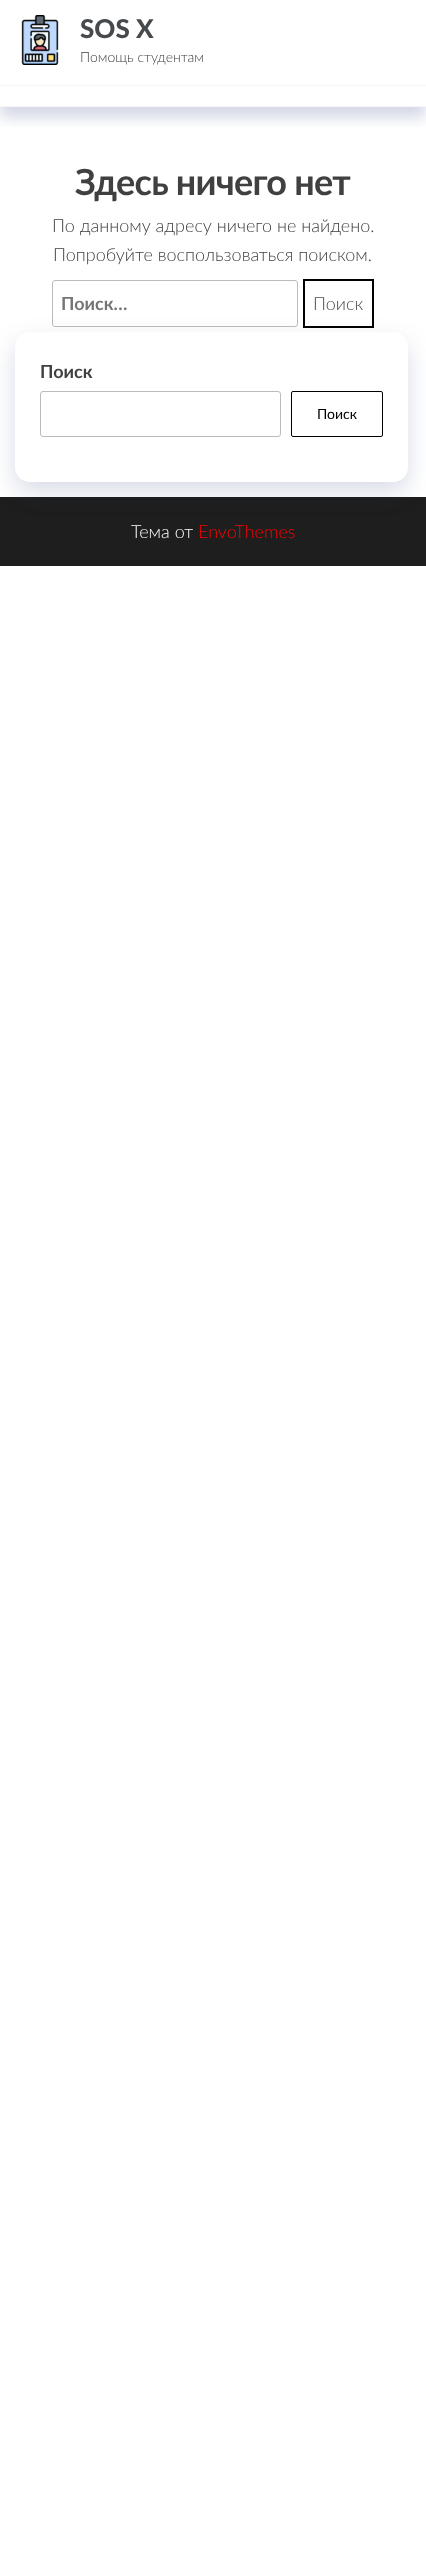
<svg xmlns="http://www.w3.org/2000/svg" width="426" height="2556">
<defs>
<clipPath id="clip1"><rect x="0" y="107" width="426" height="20"/></clipPath>
<clipPath id="clip2"><path d="M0 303h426v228h-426zm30 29h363c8.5 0 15 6.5 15 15v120c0 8.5-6.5 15-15 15h-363c-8.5 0-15-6.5-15-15v-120c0-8.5 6.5-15 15-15z" clip-rule="evenodd"/></clipPath>
</defs>
<rect width="100%" height="100%" fill="#fff"/>
<rect y="85" width="426" height="1" fill="#f6f6f6"/>
<image x="21" y="15" width="38" height="50" href="media/1.png"/>
<text x="80" y="38" style="font-family:Lato;font-size:26px;font-weight:900;fill:#464a4c">SOS X</text>
<text x="80" y="62" style="font-family:Lato;font-size:14px;font-weight:300;fill:#404040">Помощь студентам</text>
<g clip-path="url(#clip1)">
<rect y="96" width="426" height="21" fill="#192d7833" filter="blur(7.5px)"/>
</g>
<rect y="106" width="426" height="1" fill="#f6f6f6"/>
<text x="75" y="195" style="font-family:Lato;font-size:36px;font-weight:bold;letter-spacing:-0.75px;fill:#404040">Здесь ничего нет</text>
<text x="52" y="232" style="font-family:Lato;font-size:18px;font-weight:300;fill:#404040">По данному адресу ничего не найдено.</text>
<text x="53" y="261" style="font-family:Lato;font-size:18px;font-weight:300;fill:#404040">Попробуйте воспользоваться поиском.</text>
<rect x="52.5" y="280.5" width="245" height="46" rx="2.5" fill="none" stroke="#bbb"/>
<text x="61" y="310" style="font-family:Lato;font-size:18px;font-weight:bold;fill:#757575">Поиск…</text>
<rect x="304" y="280" width="69" height="47" fill="none" stroke="#000" stroke-width="2"/>
<text x="313" y="310" style="font-family:Lato;font-size:18px;font-weight:300;fill:#464a4c">Поиск</text>
<rect y="497" width="426" height="69" fill="#1e1e1e"/>
<g clip-path="url(#clip2)">
<rect x="15" y="342" width="393" height="150" rx="15" fill="#1c2d712b" filter="blur(12.5px)"/>
</g>
<text x="40" y="378" style="font-family:Lato;font-size:18px;font-weight:bold;fill:#404040">Поиск</text>
<rect x="40.5" y="391.5" width="240" height="45" rx="2.5" fill="none" stroke="#bbb"/>
<rect x="291.5" y="391.5" width="91" height="45" rx="1.5" fill="none" stroke="#000"/>
<text x="317" y="419" style="font-family:Lato;font-size:14px;fill:#000">Поиск</text>
<text x="131" y="538" style="font-family:Lato;font-size:18px;font-weight:300;fill:#fff">Тема от</text>
<text x="198" y="538" style="font-family:Lato;font-size:18px;font-weight:300;fill:#f00">EnvoThemes</text>
</svg>
